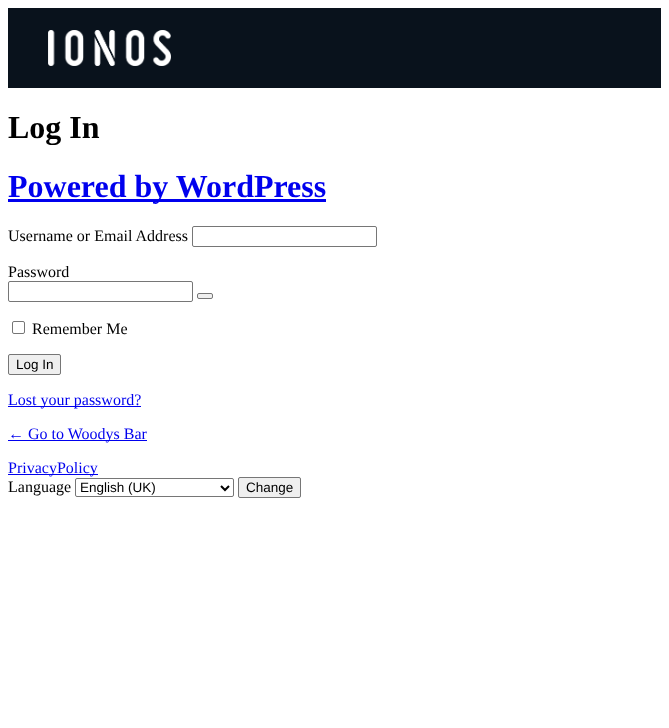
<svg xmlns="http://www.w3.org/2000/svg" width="669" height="728">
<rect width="100%" height="100%" fill="#fff"/>
<rect x="8" y="8" width="653" height="80" fill="#09121c"/>
<image x="48" y="30" width="123" height="36" href="media/1.png"/>
<text x="8" y="138" style="font-family:Liberation Serif;font-size:32px;font-weight:bold;fill:#000">Log In</text>
<rect x="8" y="199" width="318" height="3" fill="#00e"/>
<text x="8" y="197" style="font-family:Liberation Serif;font-size:32px;font-weight:bold;fill:#00e">Powered by WordPress</text>
<text x="8" y="241" style="font-family:Liberation Serif;font-size:16px;fill:#000">Username or Email Address</text>
<rect x="192.5" y="226.5" width="184" height="20" rx="1.5" fill="none" stroke="#767676"/>
<text x="8" y="277" style="font-family:Liberation Serif;font-size:16px;fill:#000">Password</text>
<rect x="8.5" y="281.5" width="184" height="20" rx="1.5" fill="none" stroke="#767676"/>
<rect x="197.5" y="293.5" width="15" height="5" rx="1.5" fill="#efefef" stroke="#767676"/>
<rect x="12.5" y="321.5" width="12" height="12" rx="1.5" fill="none" stroke="#767676"/>
<text x="32" y="334" style="font-family:Liberation Serif;font-size:16px;fill:#000">Remember Me</text>
<rect x="8.5" y="354.5" width="52" height="20" rx="1.5" fill="#efefef" stroke="#767676"/>
<text x="16" y="369" style="font-family:Liberation Sans;font-size:13.5px;fill:#000">Log In</text>
<rect x="8" y="406" width="133" height="1" fill="#00e"/>
<text x="8" y="405" style="font-family:Liberation Serif;font-size:16px;fill:#00e">Lost your password?</text>
<rect x="8" y="440" width="139" height="1" fill="#00e"/>
<text x="8" y="439" style="font-family:Liberation Serif;font-size:16px;fill:#00e">← Go to Woodys Bar</text>
<rect x="8" y="474" width="90" height="1" fill="#00e"/>
<text x="8" y="473" style="font-family:Liberation Serif;font-size:16px;fill:#00e">PrivacyPolicy</text>
<text x="8" y="492" style="font-family:Liberation Serif;font-size:16px;fill:#000">Language</text>
<rect x="75.5" y="478.5" width="158" height="18" rx="1.5" fill="none" stroke="#767676"/>
<path d="M221 486l4 4l4-4" fill="none" stroke="#000" stroke-width="2"/>
<text x="80" y="492" style="font-family:Liberation Sans;font-size:13.5px;fill:#000">English (UK)</text>
<rect x="238.5" y="477.5" width="62" height="20" rx="1.5" fill="#efefef" stroke="#767676"/>
<text x="246" y="492" style="font-family:Liberation Sans;font-size:13.5px;fill:#000">Change</text>
</svg>
